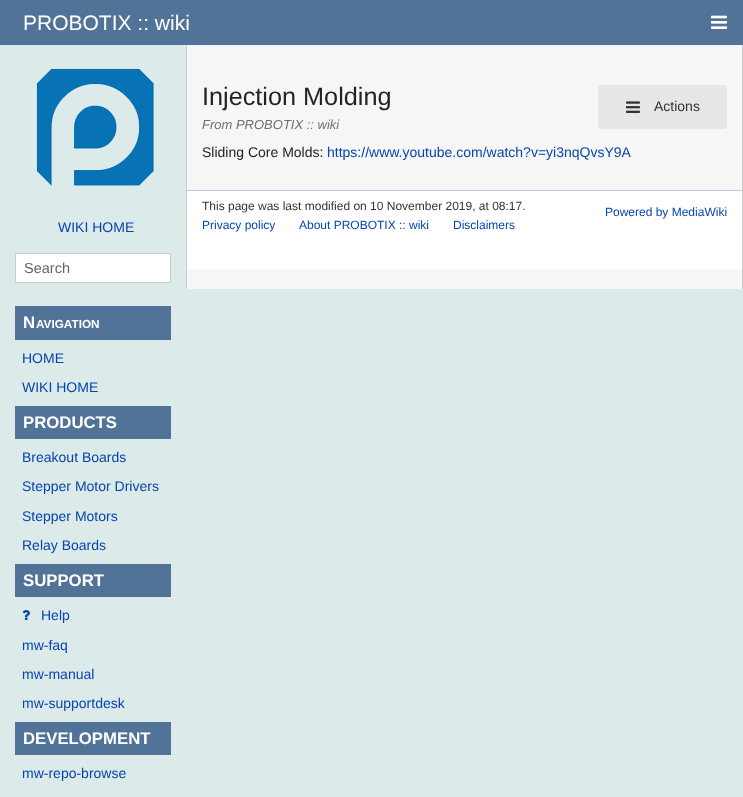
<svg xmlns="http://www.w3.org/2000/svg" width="743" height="797">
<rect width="100%" height="100%" fill="#dceaea"/>
<rect width="743" height="45" fill="#517398"/>
<text x="23" y="30" style="font-family:Liberation Sans;font-size:21px;fill:#fff">PROBOTIX :: wiki</text>
<image x="711" y="15" width="16" height="14" href="media/1.png"/>
<rect x="187" y="45" width="555" height="244" fill="#f6f6f6"/>
<rect x="742" y="45" width="1" height="244" fill="#ccc"/>
<rect x="186" y="45" width="1" height="244" fill="#ccc"/>
<text x="202" y="105" style="font-family:Liberation Sans;font-size:25.25px;fill:#222">Injection Molding</text>
<text x="202" y="129" style="font-family:Liberation Sans;font-size:13px;font-style:italic;fill:#6f6f6f">From PROBOTIX :: wiki</text>
<text x="202" y="157" style="font-family:Liberation Sans;font-size:14px;fill:#222">Sliding Core Molds:</text>
<text x="327" y="157" style="font-family:Liberation Sans;font-size:14px;fill:#0645ad">https://www.youtube.com/watch?v=yi3nqQvsY9A</text>
<rect x="598" y="85" width="129" height="44" rx="3" fill="#e7e7e7"/>
<image x="626" y="101" width="14" height="12" href="media/2.png"/>
<text x="654" y="111" style="font-family:Liberation Sans;font-size:14px;fill:#333">Actions</text>
<rect x="187" y="191" width="555" height="78" fill="#fff"/>
<rect x="187" y="190" width="555" height="1" fill="#c3c3e5"/>
<text x="202" y="210" style="font-family:Liberation Sans;font-size:12px;fill:#333">This page was last modified on 10 November 2019, at 08:17.</text>
<text x="202" y="229" style="font-family:Liberation Sans;font-size:12px;fill:#0645ad">Privacy policy</text>
<text x="299" y="229" style="font-family:Liberation Sans;font-size:12px;fill:#0645ad">About PROBOTIX :: wiki</text>
<text x="453" y="229" style="font-family:Liberation Sans;font-size:12px;fill:#0645ad">Disclaimers</text>
<text x="605" y="216" style="font-family:Liberation Sans;font-size:12px;fill:#0645ad">Powered by MediaWiki</text>
<image x="36" y="68" width="118" height="118" href="media/3.png"/>
<text x="58" y="232" style="font-family:Liberation Sans;font-size:14px;fill:#0645ad">WIKI HOME</text>
<rect x="15.5" y="253.5" width="155" height="29" fill="#fff" stroke="#ccc"/>
<text x="24" y="273" style="font-family:Liberation Sans;font-size:14.5px;fill:#666">Search</text>
<rect x="15" y="306" width="156" height="34" fill="#517398"/>
<text x="23" y="328" style="font-family:Liberation Sans;font-size:16.75px;font-weight:bold;fill:#fff">N</text>
<text x="36" y="328" style="font-family:Liberation Sans;font-size:11.75px;font-weight:bold;fill:#fff">AVIGATION</text>
<text x="22" y="363" style="font-family:Liberation Sans;font-size:14px;fill:#0645ad">HOME</text>
<text x="22" y="392" style="font-family:Liberation Sans;font-size:14px;fill:#0645ad">WIKI HOME</text>
<rect x="15" y="406" width="156" height="33" fill="#517398"/>
<text x="23" y="428" style="font-family:Liberation Sans;font-size:16.75px;font-weight:bold;fill:#fff">PRODUCTS</text>
<text x="22" y="462" style="font-family:Liberation Sans;font-size:14px;fill:#0645ad">Breakout Boards</text>
<text x="22" y="491" style="font-family:Liberation Sans;font-size:14px;fill:#0645ad">Stepper Motor Drivers</text>
<text x="22" y="521" style="font-family:Liberation Sans;font-size:14px;fill:#0645ad">Stepper Motors</text>
<text x="22" y="550" style="font-family:Liberation Sans;font-size:14px;fill:#0645ad">Relay Boards</text>
<rect x="15" y="564" width="156" height="33" fill="#517398"/>
<text x="23" y="586" style="font-family:Liberation Sans;font-size:16.75px;font-weight:bold;fill:#fff">SUPPORT</text>
<image x="22" y="610" width="8" height="10" href="media/4.png"/>
<text x="41" y="620" style="font-family:Liberation Sans;font-size:14px;fill:#0645ad">Help</text>
<text x="22" y="650" style="font-family:Liberation Sans;font-size:14px;fill:#0645ad">mw-faq</text>
<text x="22" y="679" style="font-family:Liberation Sans;font-size:14px;fill:#0645ad">mw-manual</text>
<text x="22" y="708" style="font-family:Liberation Sans;font-size:14px;fill:#0645ad">mw-supportdesk</text>
<rect x="15" y="722" width="156" height="33" fill="#517398"/>
<text x="23" y="744" style="font-family:Liberation Sans;font-size:16.75px;font-weight:bold;fill:#fff">DEVELOPMENT</text>
<text x="22" y="778" style="font-family:Liberation Sans;font-size:14px;fill:#0645ad">mw-repo-browse</text>
</svg>
